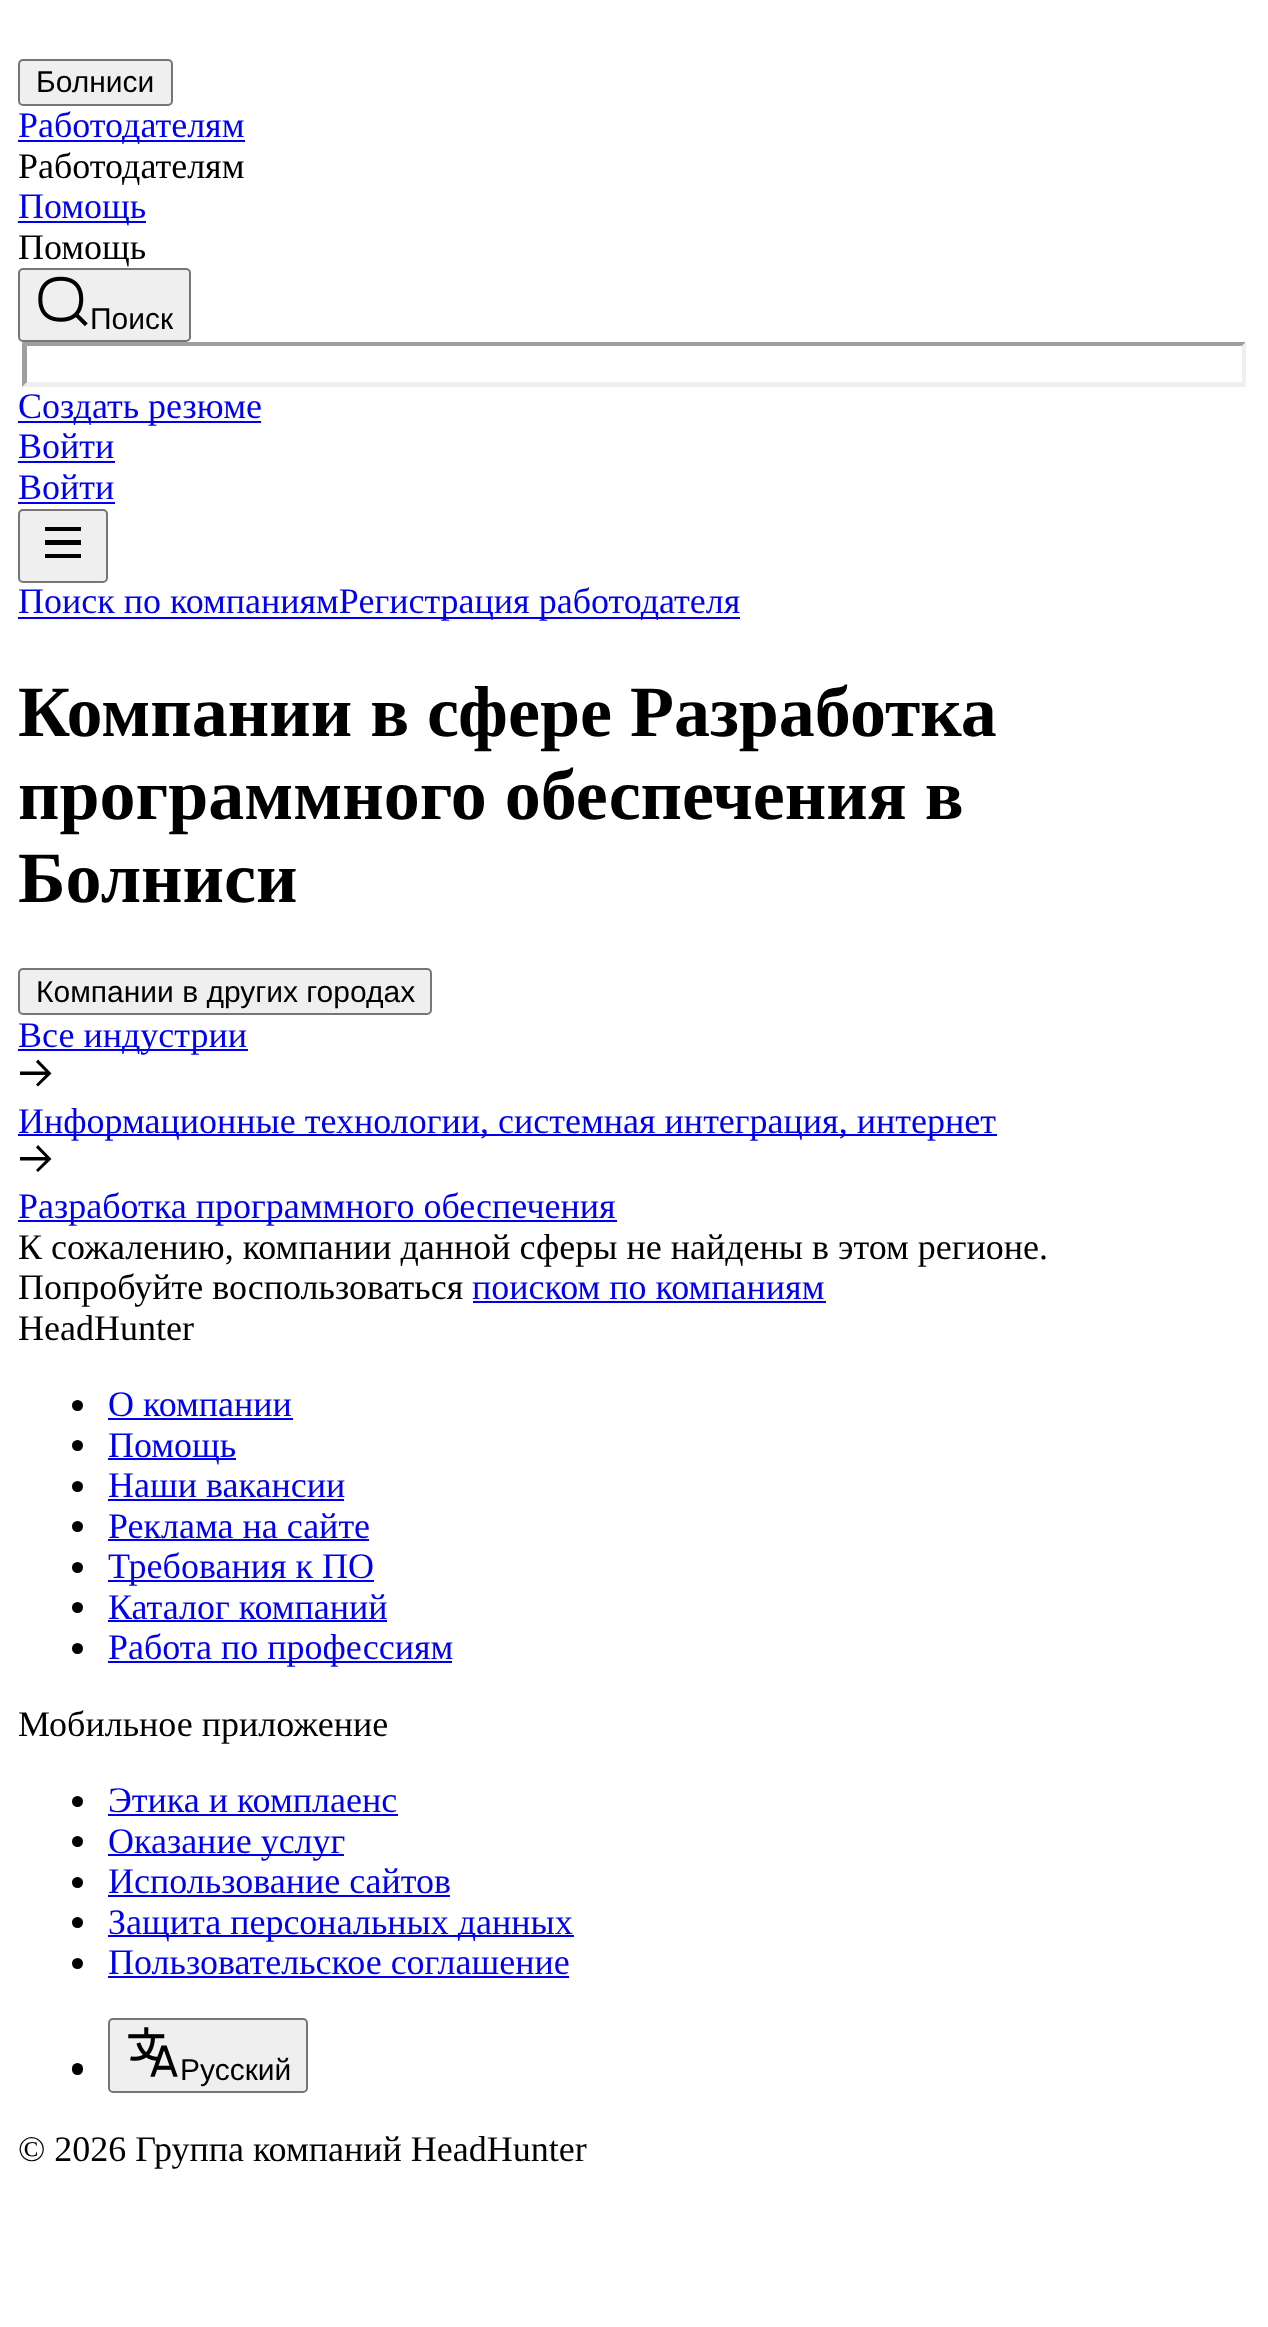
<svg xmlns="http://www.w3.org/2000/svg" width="1268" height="2327">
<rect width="100%" height="100%" fill="#fff"/>
<rect x="19" y="60" width="153" height="45" rx="4" fill="#efefef" stroke="#767676" stroke-width="2"/>
<text x="36" y="92" style="font-family:Liberation Sans;font-size:30px;fill:#000">Болниси</text>
<rect x="18" y="140" width="227" height="2" fill="#00e"/>
<text x="18" y="137" style="font-family:Liberation Serif;font-size:36px;fill:#00e">Работодателям</text>
<text x="18" y="178" style="font-family:Liberation Serif;font-size:36px;fill:#000">Работодателям</text>
<rect x="18" y="221" width="128" height="2" fill="#00e"/>
<text x="18" y="218" style="font-family:Liberation Serif;font-size:36px;fill:#00e">Помощь</text>
<text x="18" y="259" style="font-family:Liberation Serif;font-size:36px;fill:#000">Помощь</text>
<rect x="19" y="269" width="171" height="72" rx="4" fill="#efefef" stroke="#767676" stroke-width="2"/>
<image x="38" y="276" width="50" height="51" href="media/1.png"/>
<text x="90" y="329" style="font-family:Liberation Sans;font-size:30px;fill:#000">Поиск</text>
<path d="M22 342h1224l-4 4h-1215z" fill="#9f9f9f"/>
<path d="M1246 342v45l-4-5v-36z" fill="#efefef"/>
<path d="M1246 387h-1224l5-5h1215z" fill="#efefef"/>
<path d="M22 387v-45l5 4v36z" fill="#9f9f9f"/>
<rect x="18" y="421" width="243" height="2" fill="#00e"/>
<text x="18" y="418" style="font-family:Liberation Serif;font-size:36px;fill:#00e">Создать резюме</text>
<text x="18" y="458" style="font-family:Liberation Serif;font-size:36px;fill:#00e">Войти</text>
<rect x="18" y="461" width="97" height="2" fill="#00e"/>
<text x="18" y="499" style="font-family:Liberation Serif;font-size:36px;fill:#00e">Войти</text>
<rect x="18" y="502" width="97" height="2" fill="#00e"/>
<rect x="19" y="510" width="88" height="72" rx="4" fill="#efefef" stroke="#767676" stroke-width="2"/>
<rect x="45" y="527" width="36" height="4" fill="#000"/>
<rect x="45" y="540" width="36" height="5" fill="#000"/>
<rect x="45" y="554" width="36" height="4" fill="#000"/>
<rect x="18" y="617" width="722" height="2" fill="#00e"/>
<text x="18" y="613" style="font-family:Liberation Serif;font-size:36px;fill:#00e">Поиск по компаниямРегистрация работодателя</text>
<text x="18" y="736" style="font-family:Liberation Serif;font-size:72px;font-weight:bold;fill:#000">Компании в сфере Разработка</text>
<text x="18" y="819" style="font-family:Liberation Serif;font-size:72px;font-weight:bold;fill:#000">программного обеспечения в</text>
<text x="18" y="902" style="font-family:Liberation Serif;font-size:72px;font-weight:bold;fill:#000">Болниси</text>
<rect x="19" y="969" width="412" height="45" rx="4" fill="#efefef" stroke="#767676" stroke-width="2"/>
<text x="36" y="1002" style="font-family:Liberation Sans;font-size:30px;fill:#000">Компании в других городах</text>
<rect x="18" y="1049" width="230" height="2" fill="#00e"/>
<text x="18" y="1047" style="font-family:Liberation Serif;font-size:36px;fill:#00e">Все индустрии</text>
<path d="M38 1086.5l-2-2l9.5-9.5h-25.5v-3.5h25.5l-9.5-9.5l2-2.5l13.5 14z" fill="#000" fill-rule="evenodd"/>
<rect x="18" y="1134" width="979" height="2" fill="#00e"/>
<text x="18" y="1133" style="font-family:Liberation Serif;font-size:36px;fill:#00e">Информационные технологии, системная интеграция, интернет</text>
<path d="M38 1172l-2-2l9.5-9.5h-25.5v-3.5h25.5l-9.5-9.5l2-2.5l13.5 14z" fill="#000" fill-rule="evenodd"/>
<rect x="18" y="1220" width="599" height="2" fill="#00e"/>
<text x="18" y="1218" style="font-family:Liberation Serif;font-size:36px;fill:#00e">Разработка программного обеспечения</text>
<text x="18" y="1259" style="font-family:Liberation Serif;font-size:36px;fill:#000">К сожалению, компании данной сферы не найдены в этом регионе.</text>
<text x="18" y="1299" style="font-family:Liberation Serif;font-size:36px;fill:#000">Попробуйте воспользоваться</text>
<text x="472" y="1299" style="font-family:Liberation Serif;font-size:36px;fill:#00e">поиском по компаниям</text>
<rect x="473" y="1301" width="353" height="2" fill="#00e"/>
<text x="18" y="1340" style="font-family:Liberation Serif;font-size:36px;fill:#000">HeadHunter</text>
<circle cx="77.5" cy="1405.5" r="5.5" fill="#000"/>
<text x="108" y="1416" style="font-family:Liberation Serif;font-size:36px;fill:#00e">О компании</text>
<rect x="108" y="1418" width="185" height="2" fill="#00e"/>
<circle cx="77.5" cy="1445.5" r="5.5" fill="#000"/>
<rect x="108" y="1458" width="128" height="2" fill="#00e"/>
<text x="108" y="1457" style="font-family:Liberation Serif;font-size:36px;fill:#00e">Помощь</text>
<circle cx="77.5" cy="1486.5" r="5.5" fill="#000"/>
<text x="108" y="1497" style="font-family:Liberation Serif;font-size:36px;fill:#00e">Наши вакансии</text>
<rect x="108" y="1499" width="236" height="2" fill="#00e"/>
<circle cx="77.5" cy="1526.5" r="5.5" fill="#000"/>
<text x="108" y="1538" style="font-family:Liberation Serif;font-size:36px;fill:#00e">Реклама на сайте</text>
<rect x="108" y="1539" width="261" height="2" fill="#00e"/>
<circle cx="77.5" cy="1567.5" r="5.5" fill="#000"/>
<rect x="108" y="1580" width="266" height="2" fill="#00e"/>
<text x="108" y="1578" style="font-family:Liberation Serif;font-size:36px;fill:#00e">Требования к ПО</text>
<circle cx="77.5" cy="1607.5" r="5.5" fill="#000"/>
<text x="108" y="1619" style="font-family:Liberation Serif;font-size:36px;fill:#00e">Каталог компаний</text>
<rect x="108" y="1620" width="279" height="2" fill="#00e"/>
<circle cx="77.5" cy="1648.5" r="5.5" fill="#000"/>
<rect x="108" y="1661" width="344" height="2" fill="#00e"/>
<text x="108" y="1659" style="font-family:Liberation Serif;font-size:36px;fill:#00e">Работа по профессиям</text>
<text x="18" y="1736" style="font-family:Liberation Serif;font-size:36px;fill:#000">Мобильное приложение</text>
<circle cx="77.5" cy="1801.5" r="5.5" fill="#000"/>
<text x="108" y="1812" style="font-family:Liberation Serif;font-size:36px;fill:#00e">Этика и комплаенс</text>
<rect x="108" y="1814" width="290" height="2" fill="#00e"/>
<circle cx="77.5" cy="1841.5" r="5.5" fill="#000"/>
<rect x="108" y="1854" width="236" height="2" fill="#00e"/>
<text x="108" y="1853" style="font-family:Liberation Serif;font-size:36px;fill:#00e">Оказание услуг</text>
<circle cx="77.5" cy="1882.5" r="5.5" fill="#000"/>
<text x="108" y="1893" style="font-family:Liberation Serif;font-size:36px;fill:#00e">Использование сайтов</text>
<rect x="108" y="1895" width="342" height="2" fill="#00e"/>
<circle cx="77.5" cy="1922.5" r="5.5" fill="#000"/>
<rect x="108" y="1935" width="466" height="2" fill="#00e"/>
<text x="108" y="1934" style="font-family:Liberation Serif;font-size:36px;fill:#00e">Защита персональных данных</text>
<circle cx="77.5" cy="1963.5" r="5.5" fill="#000"/>
<text x="108" y="1974" style="font-family:Liberation Serif;font-size:36px;fill:#00e">Пользовательское соглашение</text>
<rect x="108" y="1976" width="461" height="2" fill="#00e"/>
<rect x="72" y="2063" width="11" height="12" rx="5.5" fill="#000"/>
<rect x="109" y="2019" width="198" height="73" rx="4" fill="#efefef" stroke="#767676" stroke-width="2"/>
<image x="128" y="2027" width="50" height="50" href="media/2.png"/>
<text x="180" y="2080" style="font-family:Liberation Sans;font-size:30px;fill:#000">Русский</text>
<text x="18" y="2161" style="font-family:Liberation Serif;font-size:36px;fill:#000">© 2026 Группа компаний HeadHunter</text>
</svg>
